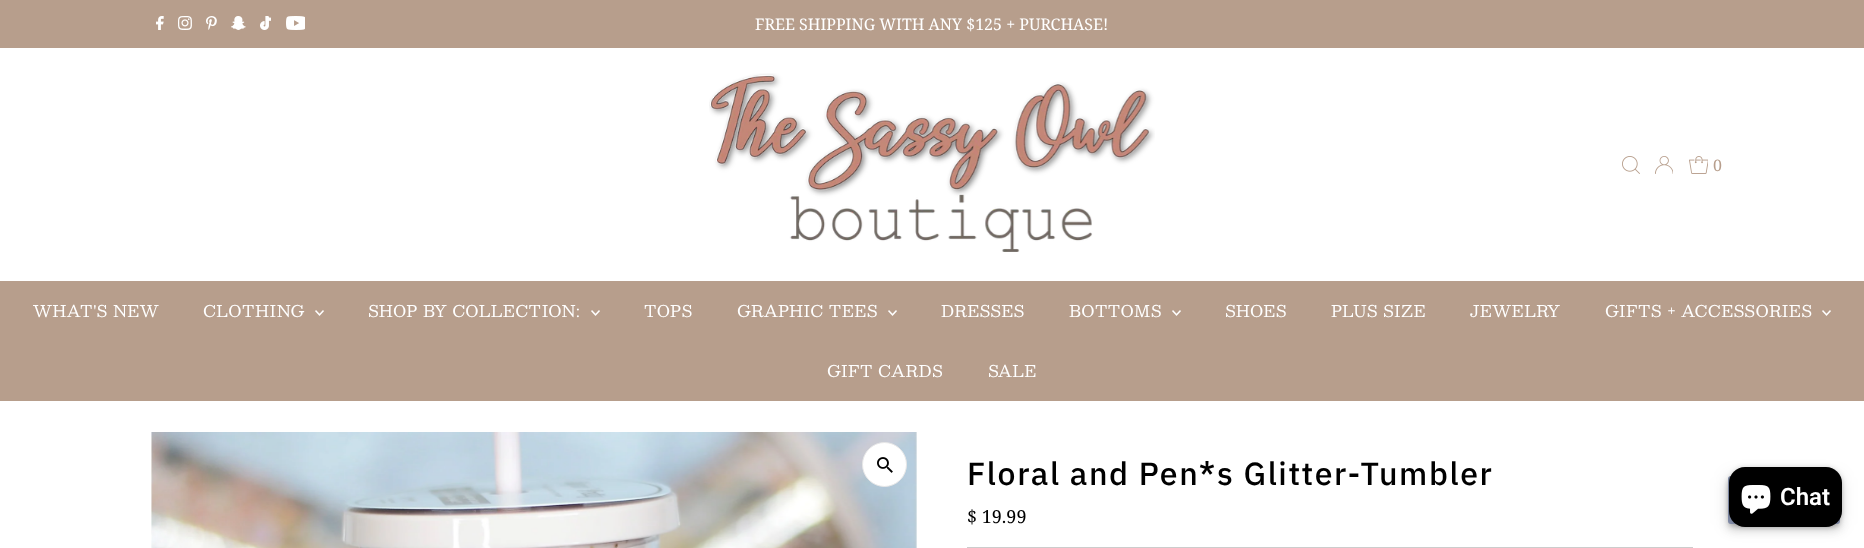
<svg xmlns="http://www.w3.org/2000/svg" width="1864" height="548">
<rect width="100%" height="100%" fill="#fff"/>
<rect width="1864" height="48" fill="#b79e8c"/>
<image x="156" y="16" width="8" height="14" href="media/1.png"/>
<image x="178" y="16" width="14" height="14" href="media/2.png"/>
<image x="206" y="16" width="11" height="14" href="media/3.png"/>
<image x="231" y="16" width="15" height="14" href="media/4.png"/>
<image x="260" y="16" width="11" height="14" href="media/5.png"/>
<image x="286" y="16" width="19" height="14" href="media/6.png"/>
<text x="755" y="30" style="font-family:Noto Serif;font-size:16px;fill:#fff">FREE SHIPPING WITH ANY $125 + PURCHASE!</text>
<image x="709" y="73" width="446" height="179" href="media/7.png"/>
<image x="1622" y="156" width="18" height="18" href="media/8.png"/>
<image x="1655" y="156" width="18" height="18" href="media/9.png"/>
<image x="1689" y="156" width="19" height="18" href="media/10.png"/>
<text x="1713" y="171" style="font-family:Noto Serif;font-size:16px;fill:#b79e8c">0</text>
<rect y="281" width="1864" height="120" fill="#b79e8c"/>
<text x="33" y="317" style="font-family:Besley;font-size:16px;letter-spacing:0.4px;fill:#fff">WHAT'S NEW</text>
<text x="203" y="317" style="font-family:Besley;font-size:16px;letter-spacing:0.4px;fill:#fff">CLOTHING</text>
<image x="315" y="310" width="9" height="6" href="media/11.png"/>
<text x="368" y="317" style="font-family:Besley;font-size:16px;letter-spacing:0.4px;fill:#fff">SHOP BY COLLECTION:</text>
<image x="591" y="310" width="9" height="6" href="media/11.png"/>
<text x="644" y="317" style="font-family:Besley;font-size:16px;letter-spacing:0.4px;fill:#fff">TOPS</text>
<text x="737" y="317" style="font-family:Besley;font-size:16px;letter-spacing:0.4px;fill:#fff">GRAPHIC TEES</text>
<image x="888" y="310" width="9" height="6" href="media/11.png"/>
<text x="941" y="317" style="font-family:Besley;font-size:16px;letter-spacing:0.4px;fill:#fff">DRESSES</text>
<text x="1069" y="317" style="font-family:Besley;font-size:16px;letter-spacing:0.4px;fill:#fff">BOTTOMS</text>
<image x="1172" y="310" width="9" height="6" href="media/11.png"/>
<text x="1225" y="317" style="font-family:Besley;font-size:16px;letter-spacing:0.4px;fill:#fff">SHOES</text>
<text x="1331" y="317" style="font-family:Besley;font-size:16px;letter-spacing:0.4px;fill:#fff">PLUS SIZE</text>
<text x="1470" y="317" style="font-family:Besley;font-size:16px;letter-spacing:0.4px;fill:#fff">JEWELRY</text>
<text x="1605" y="317" style="font-family:Besley;font-size:16px;letter-spacing:0.4px;fill:#fff">GIFTS + ACCESSORIES</text>
<image x="1822" y="310" width="9" height="6" href="media/11.png"/>
<text x="827" y="377" style="font-family:Besley;font-size:16px;letter-spacing:0.4px;fill:#fff">GIFT CARDS</text>
<text x="988" y="377" style="font-family:Besley;font-size:16px;letter-spacing:0.4px;fill:#fff">SALE</text>
<image x="151" y="432" width="766" height="116" href="media/12.png"/>
<circle cx="884.5" cy="464.5" r="22" fill="#fff" stroke="#e7e7e7"/>
<image x="877" y="457" width="16" height="16" href="media/13.png"/>
<text x="967" y="485" style="font-family:IBM Plex Sans;font-size:32px;font-weight:500;letter-spacing:1.6px;fill:#000">Floral and Pen*s Glitter-Tumbler</text>
<rect x="967" y="547" width="726" height="1" fill="#ccc"/>
<text x="967" y="523" style="font-family:Noto Serif;font-size:18px;fill:#000">$ 19.99</text>
<rect x="1728" y="477" width="112" height="48" rx="3" fill="#0000001f" filter="blur(9px)"/>
<rect x="1728" y="482" width="112" height="48" rx="3" fill="#00000024" filter="blur(5px)"/>
<rect x="1729" y="480" width="110" height="46" rx="2" fill="#00000033" filter="blur(2.5px)"/>
<rect x="1728" y="476" width="112" height="48" rx="3" fill="#808ba7"/>
<rect x="1729" y="467" width="113" height="60" rx="16" fill="#00000026" filter="blur(2.5px)"/>
<rect x="1729" y="467" width="113" height="60" rx="16" fill="#000"/>
<image x="1741" y="485" width="30" height="29" href="media/14.png"/>
<text x="1780" y="505" style="font-family:Roboto;font-size:24px;font-weight:600;fill:#fff">Chat</text>
</svg>
